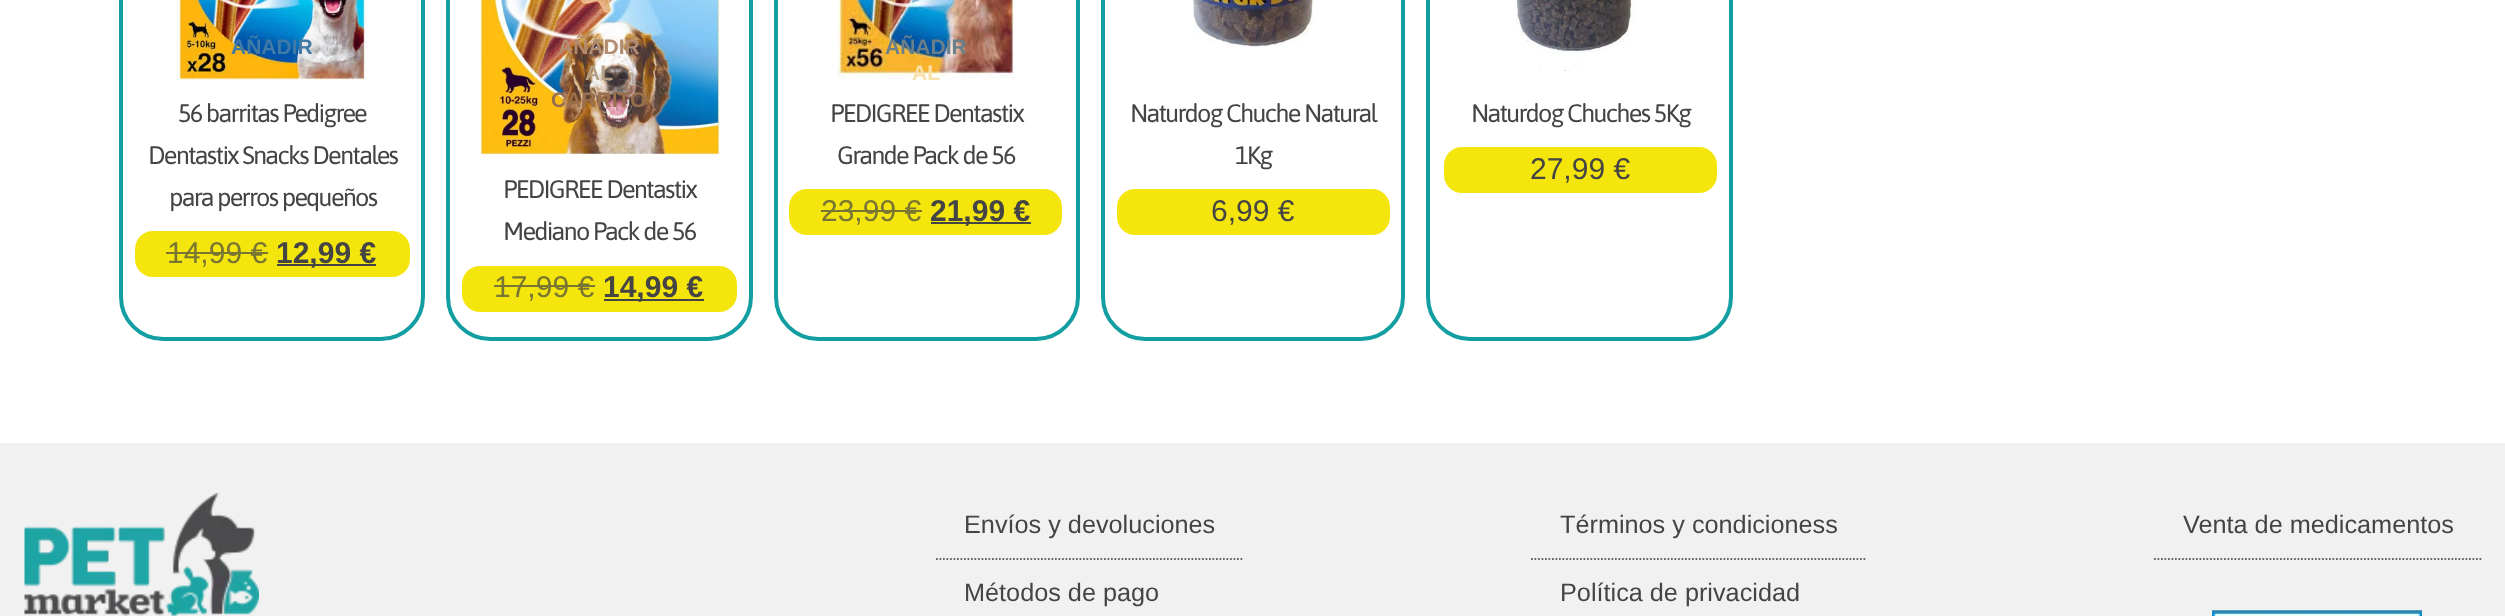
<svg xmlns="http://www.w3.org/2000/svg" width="2505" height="616">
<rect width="100%" height="100%" fill="#fff"/>
<rect x="121" y="-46" width="302" height="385" rx="42" fill="none" stroke="#139ea1" stroke-width="4"/>
<image x="176" y="0" width="191" height="80" href="media/1.png"/>
<text x="231" y="54" style="font-family:Liberation Sans;font-size:21px;font-weight:bold;fill:#407ba8">AÑADIR</text>
<text x="178" y="122" style="font-family:Asap;font-size:25.25px;letter-spacing:-1.75px;fill:#444">56 barritas Pedigree</text>
<text x="148" y="164" style="font-family:Asap;font-size:25.25px;letter-spacing:-1.75px;fill:#444">Dentastix Snacks Dentales</text>
<text x="169" y="206" style="font-family:Asap;font-size:25.25px;letter-spacing:-1.75px;fill:#444">para perros pequeños</text>
<rect x="135" y="231" width="275" height="46" rx="18" fill="#f4e60c"/>
<text x="167" y="263" style="font-family:Liberation Sans;font-size:30px;fill:#797533">14,99 €</text>
<rect x="166" y="252" width="102" height="2" fill="#797533"/>
<rect x="277" y="264" width="99" height="2" fill="#444"/>
<text x="276" y="263" style="font-family:Liberation Sans;font-size:30px;font-weight:bold;fill:#444">12,99 €</text>
<rect x="448" y="-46" width="303" height="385" rx="42" fill="none" stroke="#139ea1" stroke-width="4"/>
<image x="479" y="0" width="241" height="155" href="media/2.png"/>
<text x="558" y="54" style="font-family:Liberation Sans;font-size:21px;font-weight:bold;fill:#b18c71">AÑADIR</text>
<text x="585" y="80" style="font-family:Liberation Sans;font-size:21px;font-weight:bold;fill:#b6a088">AL</text>
<text x="551" y="107" style="font-family:Liberation Sans;font-size:21px;font-weight:bold;fill:#98704e">CARRITO</text>
<text x="503" y="198" style="font-family:Asap;font-size:25.25px;letter-spacing:-1.75px;fill:#444">PEDIGREE Dentastix</text>
<text x="503" y="240" style="font-family:Asap;font-size:25.25px;letter-spacing:-1.75px;fill:#444">Mediano Pack de 56</text>
<rect x="462" y="266" width="275" height="46" rx="18" fill="#f4e60c"/>
<text x="494" y="297" style="font-family:Liberation Sans;font-size:30px;fill:#797533">17,99 €</text>
<rect x="494" y="285" width="101" height="2" fill="#797533"/>
<rect x="604" y="299" width="100" height="2" fill="#444"/>
<text x="603" y="297" style="font-family:Liberation Sans;font-size:30px;font-weight:bold;fill:#444">14,99 €</text>
<rect x="776" y="-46" width="302" height="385" rx="42" fill="none" stroke="#139ea1" stroke-width="4"/>
<image x="837" y="0" width="177" height="79" href="media/3.png"/>
<text x="885" y="54" style="font-family:Liberation Sans;font-size:21px;font-weight:bold;fill:#697f89">AÑADIR</text>
<text x="912" y="80" style="font-family:Liberation Sans;font-size:21px;font-weight:bold;fill:#fae0ab">AL</text>
<text x="830" y="122" style="font-family:Asap;font-size:25.25px;letter-spacing:-1.75px;fill:#444">PEDIGREE Dentastix</text>
<text x="837" y="164" style="font-family:Asap;font-size:25.25px;letter-spacing:-1.75px;fill:#444">Grande Pack de 56</text>
<rect x="789" y="189" width="273" height="46" rx="18" fill="#f4e60c"/>
<text x="821" y="221" style="font-family:Liberation Sans;font-size:30px;fill:#797533">23,99 €</text>
<rect x="821" y="210" width="101" height="2" fill="#797533"/>
<rect x="931" y="222" width="100" height="2" fill="#444"/>
<text x="930" y="221" style="font-family:Liberation Sans;font-size:30px;font-weight:bold;fill:#444">21,99 €</text>
<rect x="1103" y="-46" width="300" height="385" rx="42" fill="none" stroke="#139ea1" stroke-width="4"/>
<image x="1193" y="0" width="121" height="47" href="media/4.png"/>
<text x="1130" y="122" style="font-family:Asap;font-size:25.25px;letter-spacing:-1.75px;fill:#444">Naturdog Chuche Natural</text>
<text x="1235" y="164" style="font-family:Asap;font-size:25.25px;letter-spacing:-1.75px;fill:#444">1Kg</text>
<rect x="1117" y="189" width="273" height="46" rx="18" fill="#f4e60c"/>
<text x="1211" y="221" style="font-family:Liberation Sans;font-size:30px;fill:#444">6,99 €</text>
<rect x="1428" y="-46" width="303" height="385" rx="42" fill="none" stroke="#139ea1" stroke-width="4"/>
<image x="1515" y="0" width="120" height="73" href="media/5.png"/>
<text x="1471" y="122" style="font-family:Asap;font-size:25.25px;letter-spacing:-1.75px;fill:#444">Naturdog Chuches 5Kg</text>
<rect x="1444" y="147" width="273" height="46" rx="18" fill="#f4e60c"/>
<text x="1530" y="179" style="font-family:Liberation Sans;font-size:30px;fill:#444">27,99 €</text>
<rect y="443" width="2505" height="173" fill="#f1f1f1"/>
<image x="24" y="493" width="235" height="123" href="media/6.png"/>
<path d="M936 559h306.5" fill="none" stroke="#666" stroke-width="1.8" stroke-dasharray="1.75 1.75"/>
<text x="964" y="533" style="font-family:Liberation Sans;font-size:25.25px;fill:#444">Envíos y devoluciones</text>
<text x="964" y="601" style="font-family:Liberation Sans;font-size:25.25px;fill:#444">Métodos de pago</text>
<path d="M1531 559h334.5" fill="none" stroke="#666" stroke-width="1.8" stroke-dasharray="1.75 1.75"/>
<text x="1560" y="533" style="font-family:Liberation Sans;font-size:25.25px;fill:#444">Términos y condicioness</text>
<text x="1560" y="601" style="font-family:Liberation Sans;font-size:25.25px;fill:#444">Política de privacidad</text>
<path d="M2154 559h327.5" fill="none" stroke="#666" stroke-width="1.8" stroke-dasharray="1.75 1.75"/>
<text x="2183" y="533" style="font-family:Liberation Sans;font-size:25.25px;fill:#444">Venta de medicamentos</text>
<image x="2212" y="610" width="210" height="6" href="media/7.png"/>
</svg>
